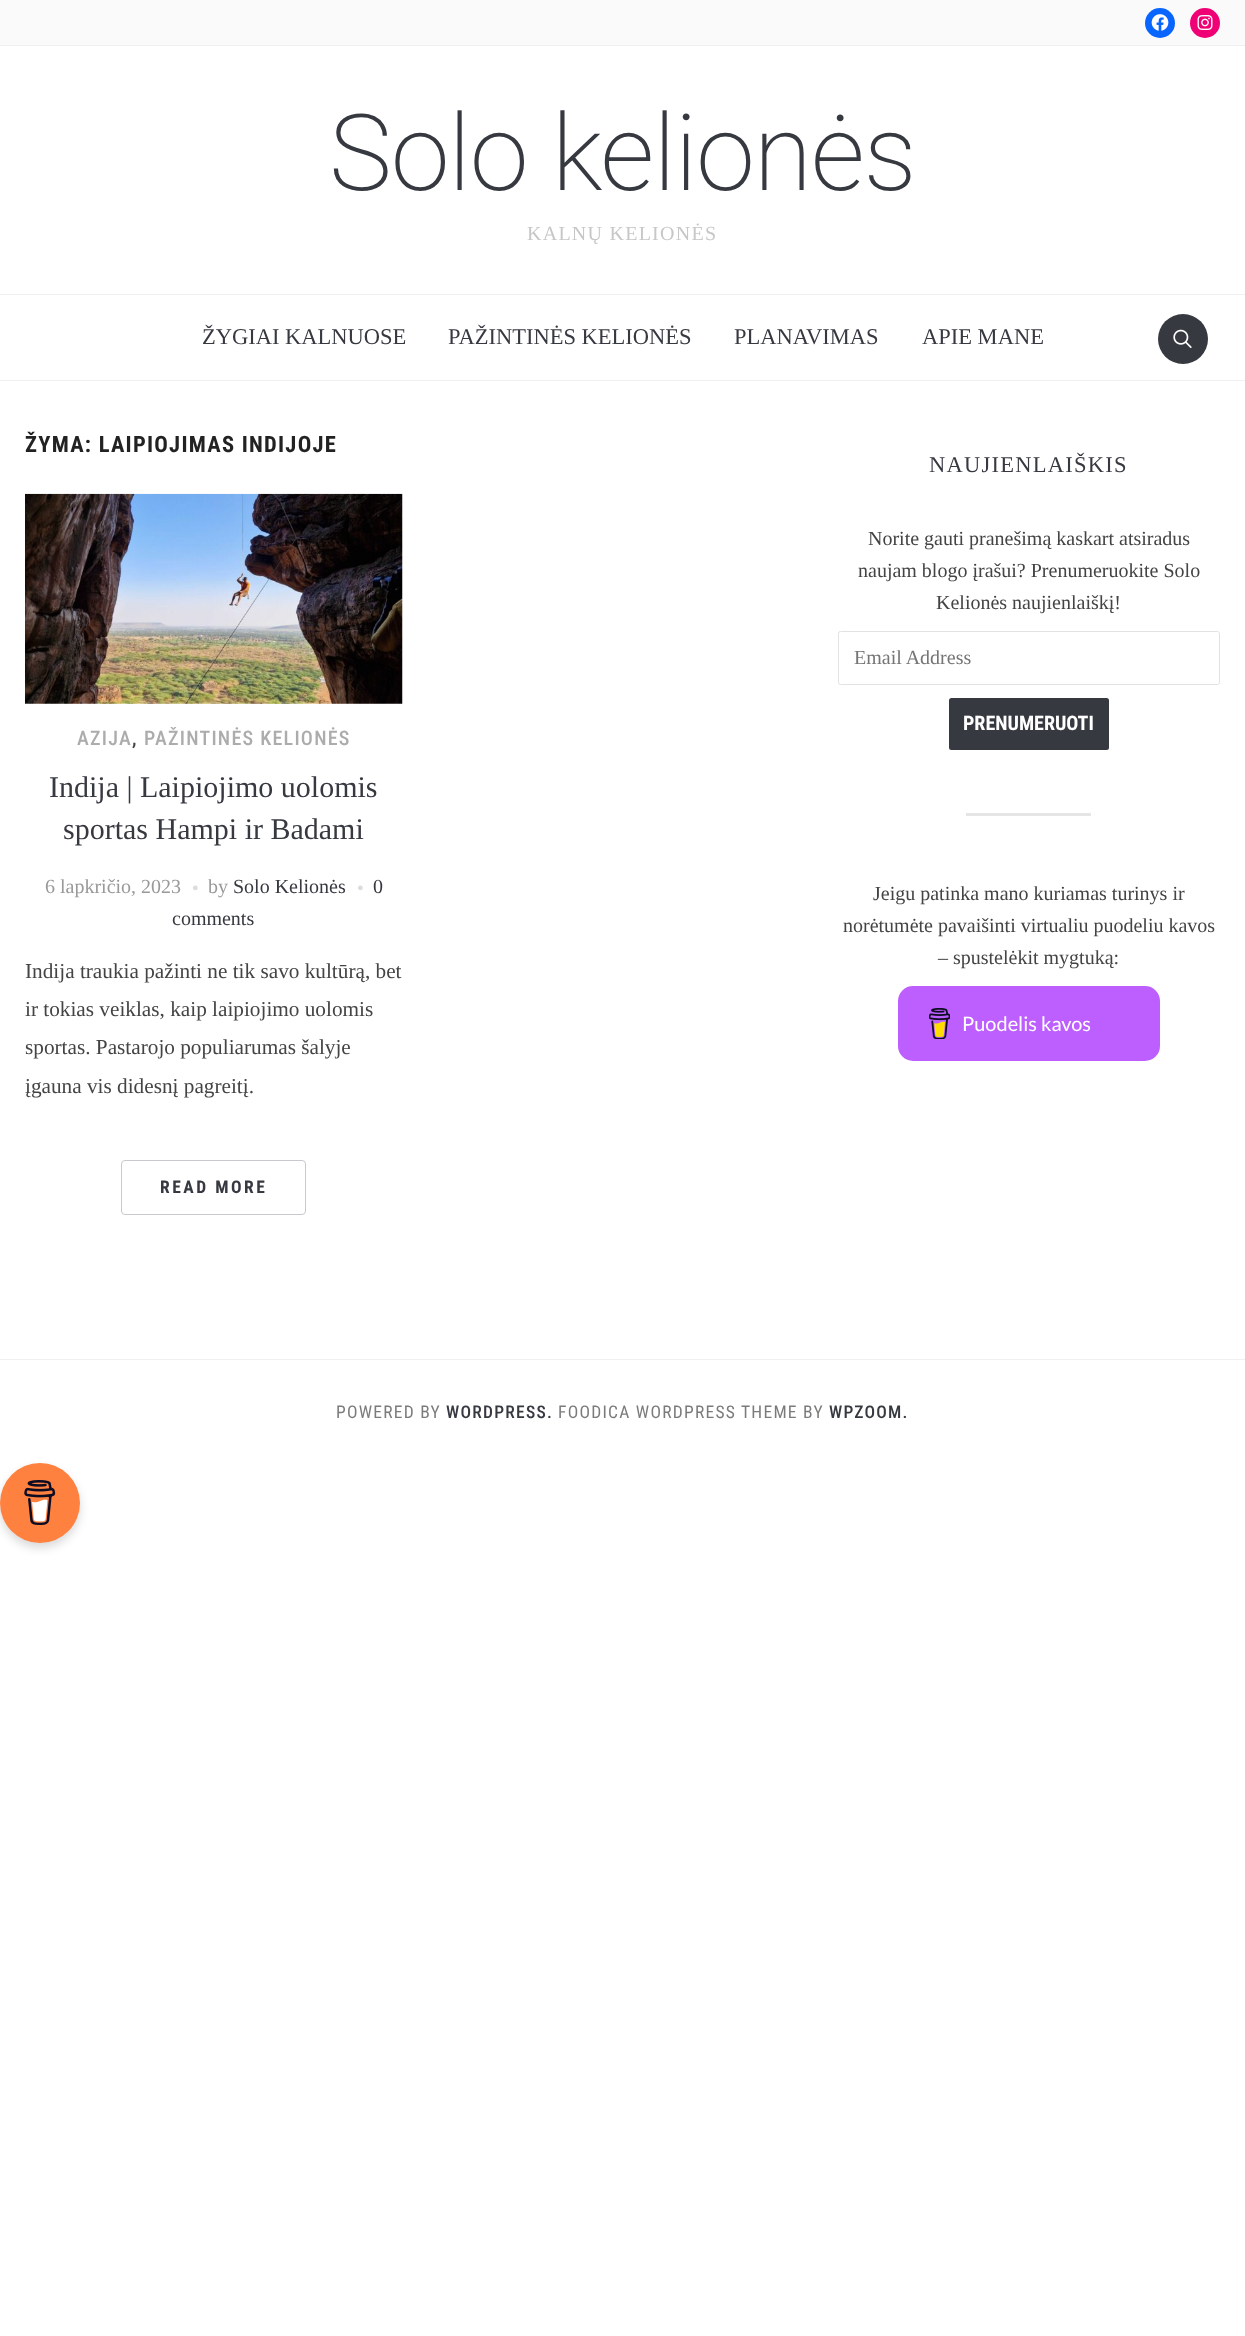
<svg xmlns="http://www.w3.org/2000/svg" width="1245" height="2336">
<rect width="100%" height="100%" fill="#fff"/>
<rect width="1245" height="45" fill="#fafafa"/>
<rect y="45" width="1245" height="1" fill="#f0f0f0"/>
<circle cx="1160" cy="23" r="15" fill="#0866ff"/>
<image x="1151" y="14" width="18" height="17" href="media/1.png"/>
<circle cx="1205" cy="23" r="15" fill="#f00075"/>
<image x="1197" y="15" width="16" height="15" href="media/2.png"/>
<text x="329" y="190" style="font-family:Roboto;font-size:106.25px;font-weight:200;letter-spacing:-1.25px;fill:#363940">Solo kelionės</text>
<text x="527" y="240" style="font-family:Liberation Serif;font-size:20px;letter-spacing:1.25px;fill:#c7c7c7">KALNŲ KELIONĖS</text>
<rect y="294" width="1245" height="1" fill="#f0f0f0"/>
<rect y="380" width="1245" height="1" fill="#f0f0f0"/>
<text x="202" y="344" style="font-family:Liberation Serif;font-size:22.5px;fill:#363940">ŽYGIAI KALNUOSE</text>
<text x="448" y="344" style="font-family:Liberation Serif;font-size:22.5px;fill:#363940">PAŽINTINĖS KELIONĖS</text>
<text x="734" y="344" style="font-family:Liberation Serif;font-size:22.5px;fill:#363940">PLANAVIMAS</text>
<text x="922" y="344" style="font-family:Liberation Serif;font-size:22.5px;fill:#363940">APIE MANE</text>
<circle cx="1183" cy="339" r="25" fill="#363940"/>
<image x="1173" y="329" width="19" height="19" href="media/3.png"/>
<text x="25" y="452" style="font-family:Roboto Condensed;font-size:22.5px;font-weight:bold;letter-spacing:1.25px;fill:#222">ŽYMA: LAIPIOJIMAS INDIJOJE</text>
<image x="25" y="493" width="378" height="211" href="media/4.png"/>
<text x="77" y="745" style="font-family:Roboto Condensed;font-size:20px;font-weight:500;letter-spacing:1.25px;fill:#acacac">AZIJA</text>
<text x="132" y="745" style="font-family:Roboto Condensed;font-size:20px;font-weight:500;letter-spacing:1.25px;fill:#444">,</text>
<text x="144" y="745" style="font-family:Roboto Condensed;font-size:20px;font-weight:500;letter-spacing:1.25px;fill:#acacac">PAŽINTINĖS KELIONĖS</text>
<text x="49" y="797" style="font-family:Liberation Serif;font-size:30px;fill:#363940">Indija | Laipiojimo uolomis</text>
<text x="63" y="839" style="font-family:Liberation Serif;font-size:30px;fill:#363940">sportas Hampi ir Badami</text>
<text x="45" y="893" style="font-family:Liberation Serif;font-size:20px;fill:#999">6 lapkričio, 2023</text>
<text x="192" y="891" style="font-family:Liberation Serif;font-size:11px;fill:#dbdddd">●</text>
<text x="208" y="893" style="font-family:Liberation Serif;font-size:20px;fill:#999">by</text>
<text x="233" y="893" style="font-family:Liberation Serif;font-size:20px;fill:#363940">Solo Kelionės</text>
<text x="357" y="891" style="font-family:Liberation Serif;font-size:11px;fill:#dbdddd">●</text>
<text x="373" y="893" style="font-family:Liberation Serif;font-size:20px;fill:#363940">0</text>
<text x="172" y="925" style="font-family:Liberation Serif;font-size:20px;fill:#363940">comments</text>
<text x="25" y="978" style="font-family:Liberation Serif;font-size:21.25px;fill:#444">Indija traukia pažinti ne tik savo kultūrą, bet</text>
<text x="25" y="1016" style="font-family:Liberation Serif;font-size:21.25px;fill:#444">ir tokias veiklas, kaip laipiojimo uolomis</text>
<text x="25" y="1054" style="font-family:Liberation Serif;font-size:21.25px;fill:#444">sportas. Pastarojo populiarumas šalyje</text>
<text x="25" y="1093" style="font-family:Liberation Serif;font-size:21.25px;fill:#444">įgauna vis didesnį pagreitį.</text>
<rect x="121.5" y="1160.5" width="184" height="54" rx="3.5" fill="none" stroke="#c7c9cf"/>
<text x="160" y="1193" style="font-family:Roboto Condensed;font-size:17.5px;font-weight:bold;letter-spacing:2.5px;fill:#363940">READ MORE</text>
<text x="929" y="472" style="font-family:Liberation Serif;font-size:22.5px;letter-spacing:1.25px;fill:#363940">NAUJIENLAIŠKIS</text>
<text x="868" y="545" style="font-family:Liberation Serif;font-size:20px;fill:#444">Norite gauti pranešimą kaskart atsiradus</text>
<text x="858" y="577" style="font-family:Liberation Serif;font-size:20px;fill:#444">naujam blogo įrašui? Prenumeruokite Solo</text>
<text x="936" y="609" style="font-family:Liberation Serif;font-size:20px;fill:#444">Kelionės naujienlaiškį!</text>
<rect x="838.5" y="631.5" width="381" height="53" rx="2" fill="none" stroke="#e2e2e2"/>
<text x="854" y="664" style="font-family:Liberation Serif;font-size:20px;fill:#757575">Email Address</text>
<rect x="949" y="698" width="160" height="52" rx="2.5" fill="#363940"/>
<text x="963" y="730" style="font-family:Roboto Condensed;font-size:20px;font-weight:bold;fill:#fff">PRENUMERUOTI</text>
<rect x="966" y="813" width="125" height="3" fill="#e5e5e5"/>
<text x="873" y="900" style="font-family:Liberation Serif;font-size:20px;fill:#444">Jeigu patinka mano kuriamas turinys ir</text>
<text x="843" y="932" style="font-family:Liberation Serif;font-size:20px;fill:#444">norėtumėte pavaišinti virtualiu puodeliu kavos</text>
<text x="938" y="964" style="font-family:Liberation Serif;font-size:20px;fill:#444">– spustelėkit mygtuką:</text>
<rect x="898" y="986" width="262" height="75" rx="15" fill="#bd5fff"/>
<image x="929" y="1008" width="21" height="31" href="media/5.png"/>
<text x="962" y="1031" style="font-family:Lato;font-size:20px;fill:#fff">Puodelis kavos</text>
<rect y="1359" width="1245" height="1" fill="#f0f0f0"/>
<text x="336" y="1418" style="font-family:Roboto Condensed;font-size:17.5px;letter-spacing:1.25px;fill:#7b7b7b">POWERED BY</text>
<text x="446" y="1418" style="font-family:Roboto Condensed;font-size:17.5px;font-weight:500;letter-spacing:1.25px;fill:#363940">WORDPRESS.</text>
<text x="558" y="1418" style="font-family:Roboto Condensed;font-size:17.5px;letter-spacing:1.25px;fill:#7b7b7b">FOODICA WORDPRESS THEME BY</text>
<text x="829" y="1418" style="font-family:Roboto Condensed;font-size:17.5px;font-weight:500;letter-spacing:1.25px;fill:#363940">WPZOOM.</text>
<rect y="1468" width="80" height="80" rx="40" fill="#00000026" filter="blur(5px)"/>
<circle cx="40" cy="1503" r="40" fill="#ff813f"/>
<image x="24" y="1480" width="32" height="45" href="media/6.png"/>
</svg>
